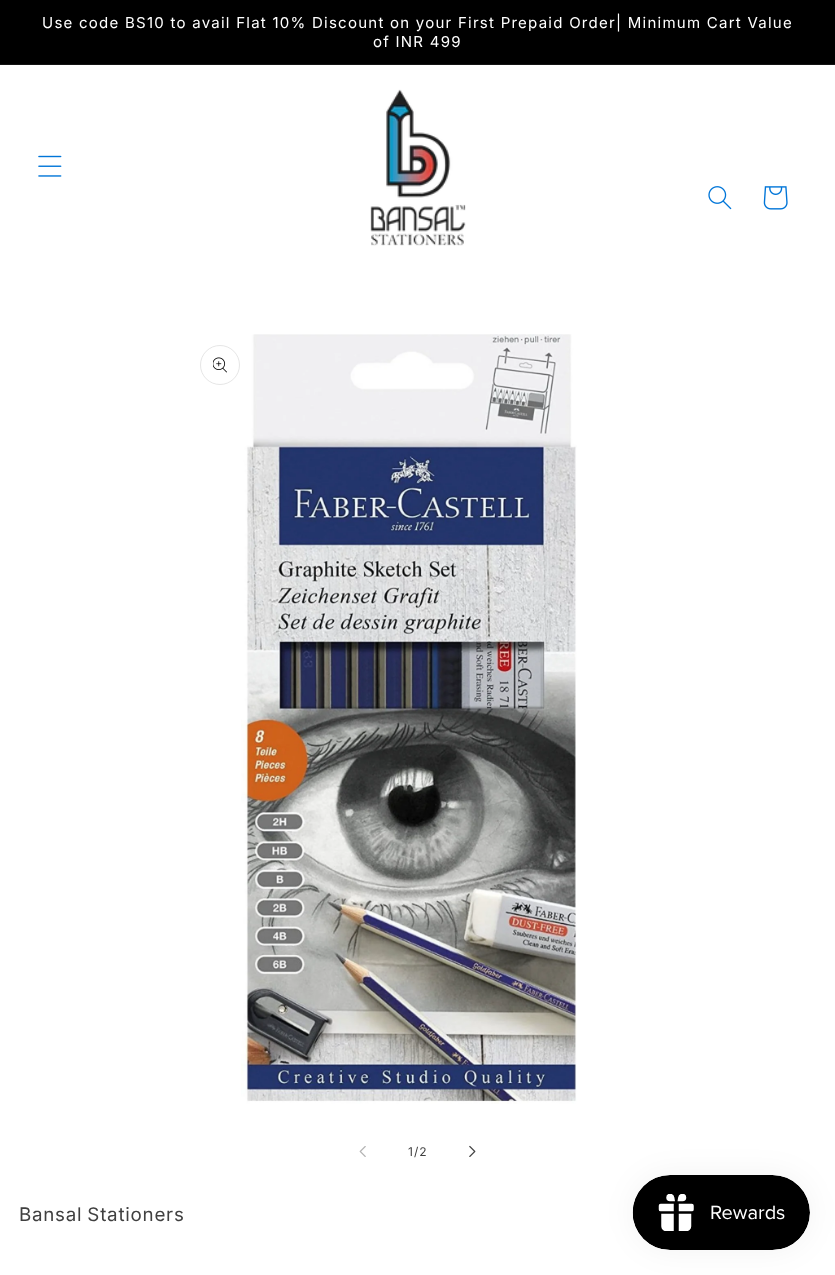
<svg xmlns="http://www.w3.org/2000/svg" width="835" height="1275">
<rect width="100%" height="100%" fill="#fff"/>
<rect width="835" height="64" fill="#000"/>
<rect y="64" width="835" height="1" fill="#141414"/>
<text x="42" y="28" style="font-family:Inter;font-size:15px;letter-spacing:1.25px;fill:#fff">Use code BS10 to avail Flat 10% Discount on your First Prepaid Order| Minimum Cart Value</text>
<text x="373" y="47" style="font-family:Inter;font-size:15px;letter-spacing:1.25px;fill:#fff">of INR 499</text>
<image x="38" y="155" width="24" height="22" href="media/1.png"/>
<image x="370" y="89" width="96" height="157" href="media/2.png"/>
<image x="708" y="186" width="24" height="24" href="media/3.png"/>
<image x="763" y="186" width="25" height="24" href="media/4.png"/>
<circle cx="220" cy="365" r="19.5" fill="none" stroke="#e6e6e6"/>
<image x="213" y="357" width="14" height="16" href="media/5.png"/>
<image x="241" y="334" width="336" height="770" href="media/6.png"/>
<image x="359" y="1146" width="7" height="11" href="media/7.png"/>
<text x="408" y="1156" style="font-family:Inter;font-size:12px;letter-spacing:1px;fill:#404040">1/2</text>
<image x="469" y="1145" width="7" height="12" href="media/8.png"/>
<text x="19" y="1221" word-spacing="-1" style="font-family:Inter;font-size:18.75px;letter-spacing:0.75px;fill:#404040">Bansal Stationers</text>
<rect x="633" y="1175" width="177" height="75" rx="37.5" fill="#0000000d" filter="blur(15.5px)"/>
<image x="632" y="1175" width="178" height="75" href="media/9.png"/>
</svg>
